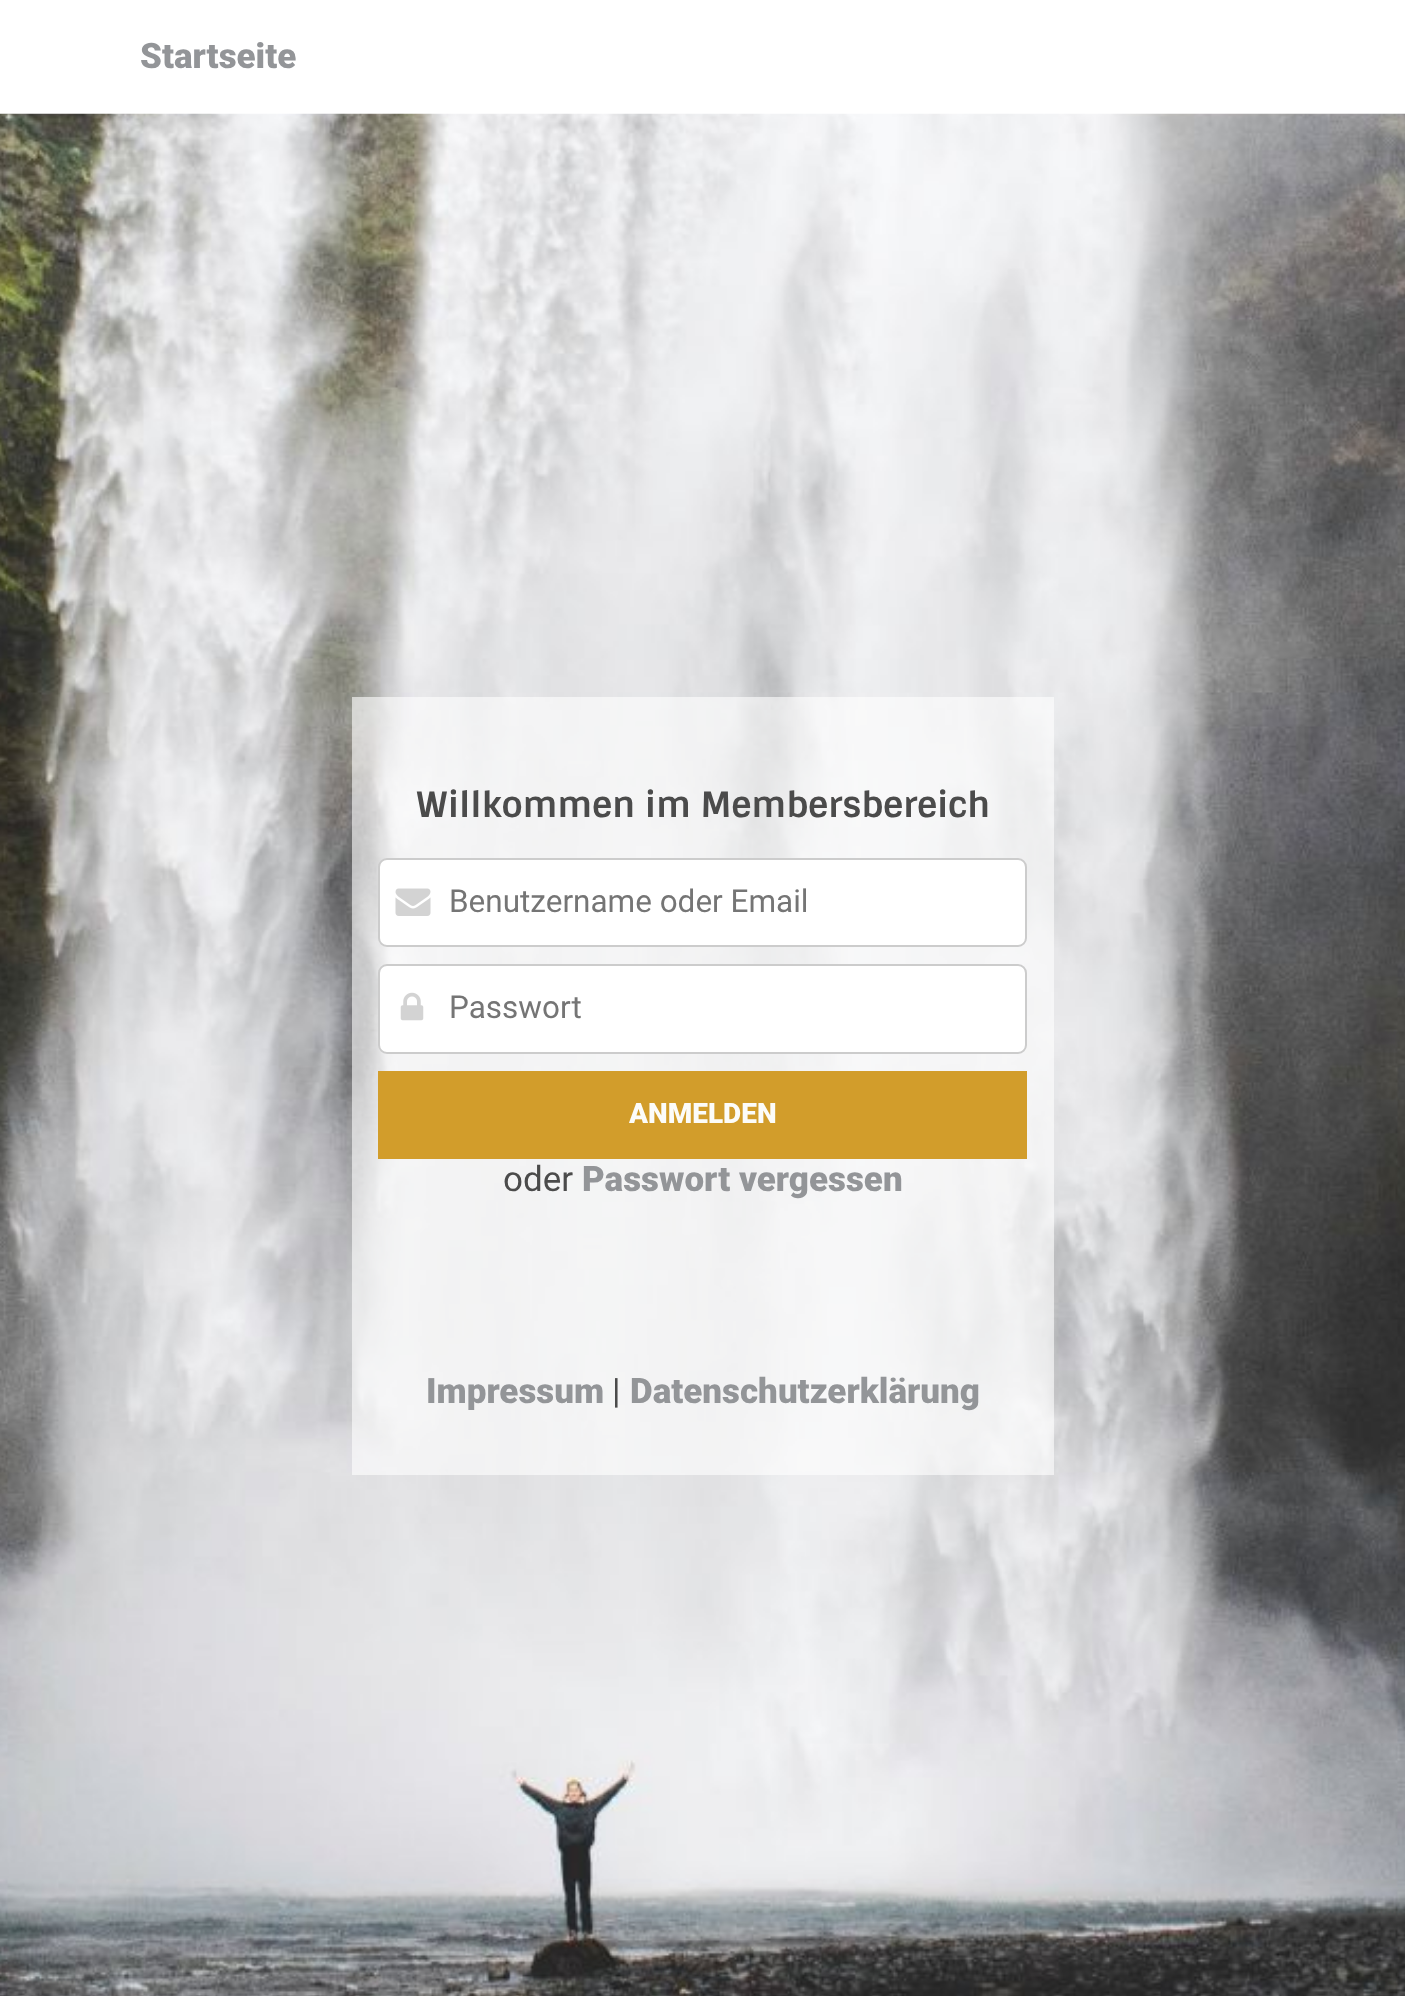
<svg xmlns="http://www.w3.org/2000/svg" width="1405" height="1996">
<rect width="100%" height="100%" fill="#fff"/>
<text x="140" y="68" style="font-family:Roboto;font-size:35px;font-weight:900;fill:#939598">Startseite</text>
<image x="0" y="113" width="1405" height="1883" href="media/1.png"/>
<rect x="352" y="697" width="702" height="778" fill="#ffffff99"/>
<text x="416" y="817" style="font-family:Sintony;font-size:35px;font-weight:bold;fill:#4b4b4b">Willkommen im Membersbereich</text>
<rect x="379" y="859" width="647" height="87" rx="8" fill="#fff" stroke="#ccc" stroke-width="2"/>
<image x="395" y="888" width="36" height="28" href="media/2.png"/>
<text x="449" y="912" style="font-family:Roboto;font-size:31.5px;fill:#757575">Benutzername oder Email</text>
<rect x="379" y="965" width="647" height="88" rx="8" fill="#fff" stroke="#ccc" stroke-width="2"/>
<image x="400" y="992" width="24" height="29" href="media/3.png"/>
<text x="449" y="1018" style="font-family:Roboto;font-size:31.5px;fill:#757575">Passwort</text>
<rect x="378" y="1071" width="649" height="88" fill="#d29d2b"/>
<text x="629" y="1123" style="font-family:Roboto;font-size:28px;font-weight:900;fill:#fcfcf9">ANMELDEN</text>
<text x="503" y="1191" style="font-family:Roboto;font-size:35px;fill:#4b4b4b">oder</text>
<text x="582" y="1191" style="font-family:Roboto;font-size:35px;font-weight:900;fill:#939598">Passwort vergessen</text>
<text x="426" y="1403" style="font-family:Roboto;font-size:35px;font-weight:900;fill:#939598">Impressum</text>
<text x="612" y="1403" style="font-family:Roboto;font-size:35px;fill:#4b4b4b">|</text>
<text x="630" y="1403" style="font-family:Roboto;font-size:35px;font-weight:900;fill:#939598">Datenschutzerklärung</text>
</svg>
